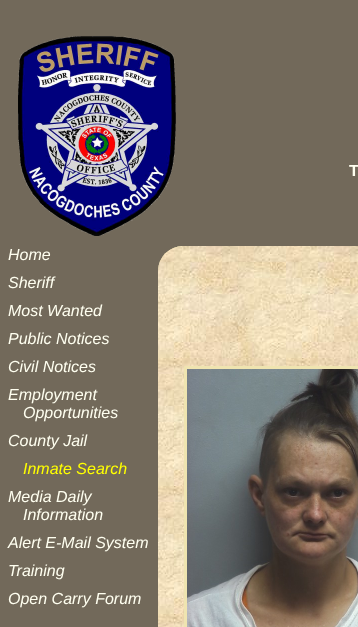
<svg xmlns="http://www.w3.org/2000/svg" width="358" height="627">
<rect width="100%" height="100%" fill="#72695a"/>
<image x="18" y="36" width="158" height="200" href="media/1.png"/>
<text x="349" y="176" style="font-family:Liberation Sans;font-size:16px;font-weight:bold;letter-spacing:5px;fill:#fffff0">T</text>
<text x="8" y="260" style="font-family:Liberation Sans;font-size:16px;font-style:italic;fill:#fffff0">Home</text>
<text x="8" y="288" style="font-family:Liberation Sans;font-size:16px;font-style:italic;fill:#fffff0">Sheriff</text>
<text x="8" y="316" style="font-family:Liberation Sans;font-size:16px;font-style:italic;fill:#fffff0">Most Wanted</text>
<text x="8" y="344" style="font-family:Liberation Sans;font-size:16px;font-style:italic;fill:#fffff0">Public Notices</text>
<text x="8" y="372" style="font-family:Liberation Sans;font-size:16px;font-style:italic;fill:#fffff0">Civil Notices</text>
<text x="8" y="400" style="font-family:Liberation Sans;font-size:16px;font-style:italic;fill:#fffff0">Employment</text>
<text x="23" y="418" style="font-family:Liberation Sans;font-size:16px;font-style:italic;fill:#fffff0">Opportunities</text>
<text x="8" y="446" style="font-family:Liberation Sans;font-size:16px;font-style:italic;fill:#fffff0">County Jail</text>
<text x="23" y="474" style="font-family:Liberation Sans;font-size:16px;font-style:italic;fill:#ff0">Inmate Search</text>
<text x="8" y="502" style="font-family:Liberation Sans;font-size:16px;font-style:italic;fill:#fffff0">Media Daily</text>
<text x="23" y="520" style="font-family:Liberation Sans;font-size:16px;font-style:italic;fill:#fffff0">Information</text>
<text x="8" y="548" style="font-family:Liberation Sans;font-size:16px;font-style:italic;fill:#fffff0">Alert E-Mail System</text>
<text x="8" y="576" style="font-family:Liberation Sans;font-size:16px;font-style:italic;fill:#fffff0">Training</text>
<text x="8" y="604" style="font-family:Liberation Sans;font-size:16px;font-style:italic;fill:#fffff0">Open Carry Forum</text>
<rect x="158" y="246" width="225" height="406" rx="25" fill="#efe4b0"/>
<image x="158" y="246" width="200" height="381" href="media/2.png"/>
<path d="M184 366h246l-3 3h-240z" fill="#efe4b0"/>
<path d="M184 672v-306l3 3v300z" fill="#efe4b0"/>
<image x="187" y="369" width="171" height="258" href="media/3.png"/>
</svg>
